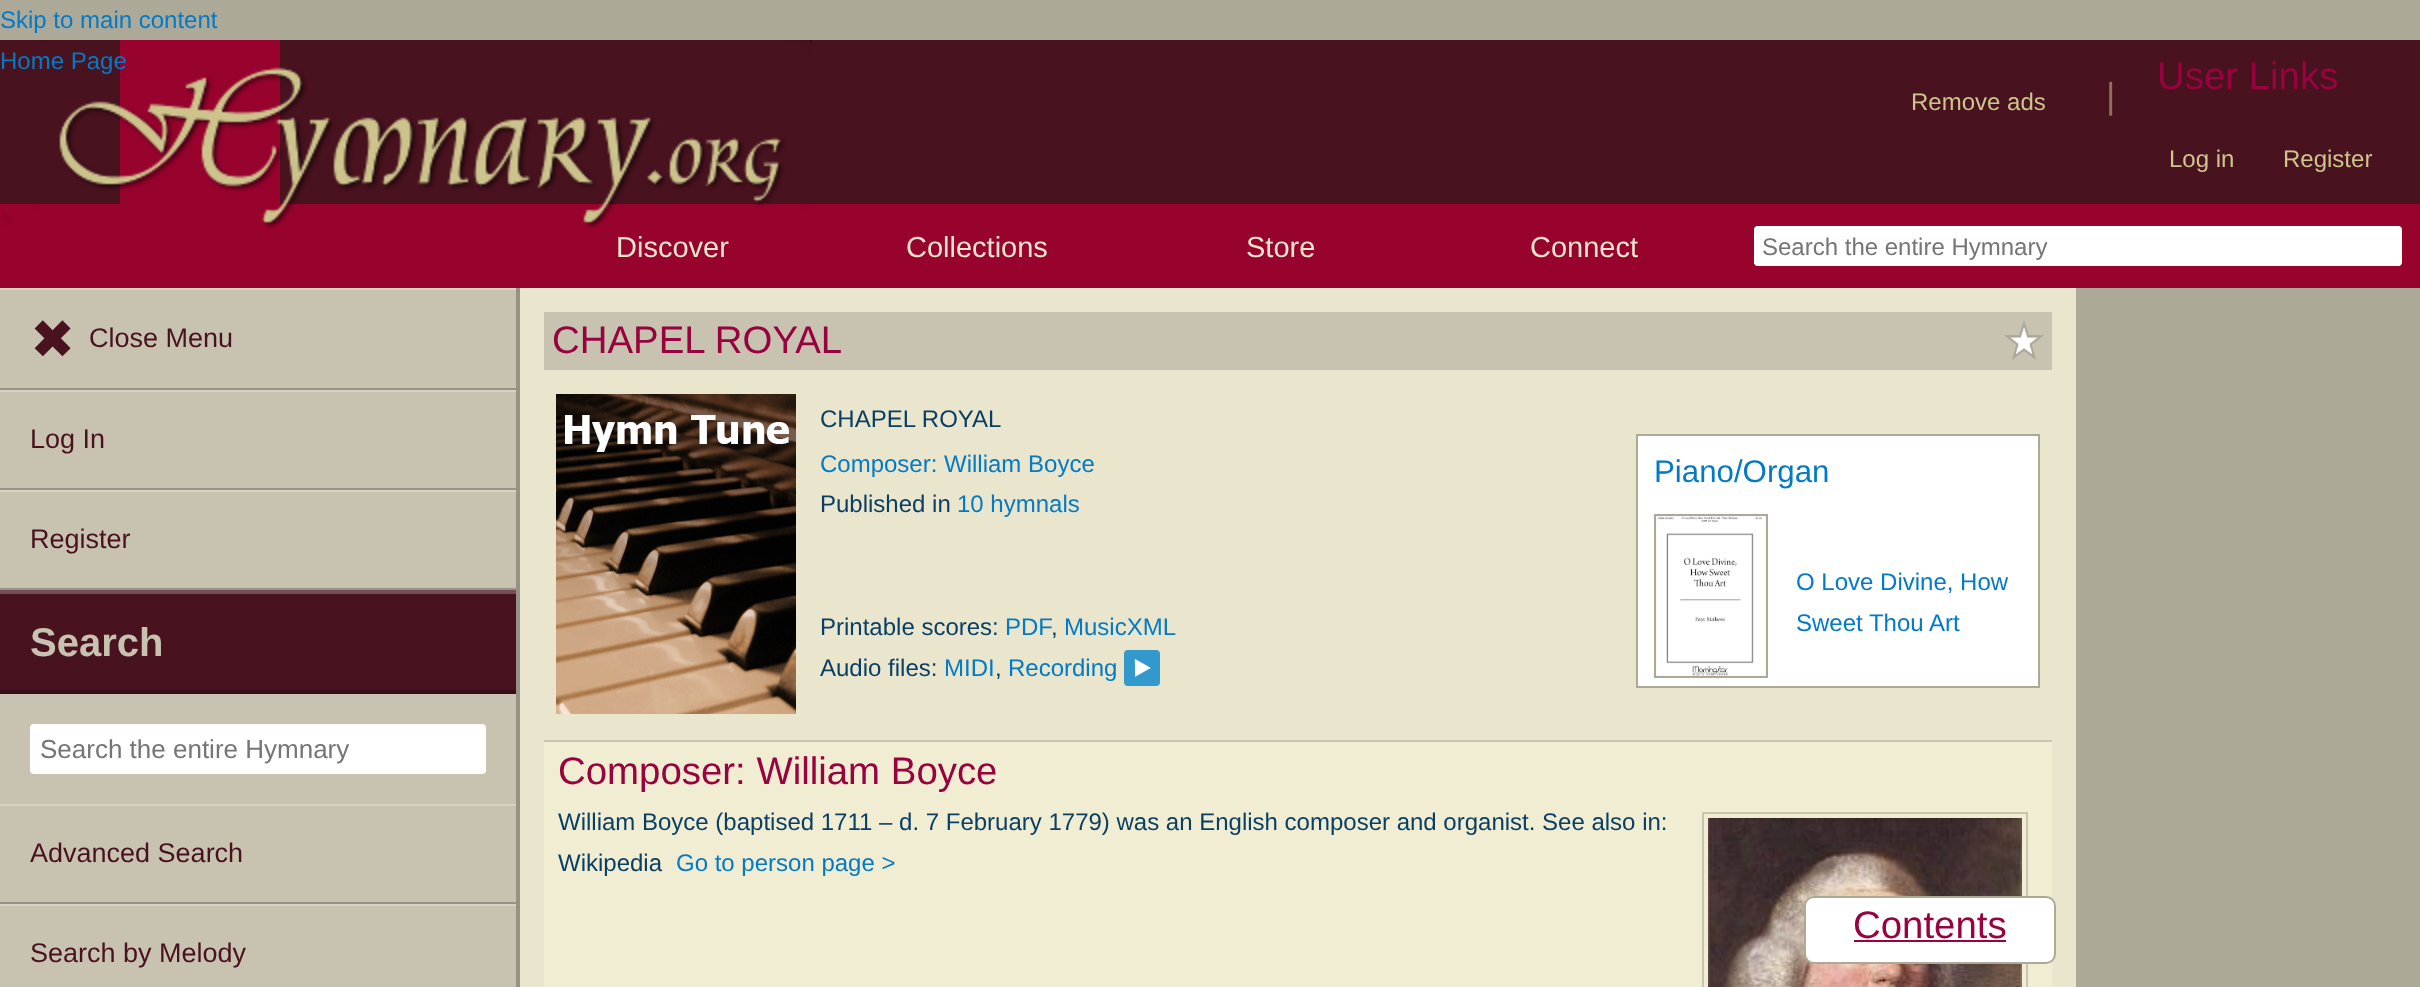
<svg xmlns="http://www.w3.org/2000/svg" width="2420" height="987">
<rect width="100%" height="100%" fill="#ada999"/>
<text x="0" y="28" style="font-family:Liberation Sans;font-size:24px;fill:#027ac6">Skip to main content</text>
<rect y="40" width="2420" height="164" fill="#49121f"/>
<rect x="120" y="40" width="160" height="164" fill="#98032e"/>
<rect y="204" width="2420" height="84" fill="#98032e"/>
<image x="3" y="40" width="809" height="188" href="media/1.png"/>
<text x="0" y="69" style="font-family:Liberation Sans;font-size:24px;fill:#027ac6">Home Page</text>
<text x="1911" y="110" style="font-family:Liberation Sans;font-size:24px;fill:#cec48d">Remove ads</text>
<text x="2106" y="108" style="font-family:Liberation Sans;font-size:36px;fill:#907159">|</text>
<text x="2157" y="89" style="font-family:Liberation Sans;font-size:38.4px;fill:#98023e">User Links</text>
<text x="2169" y="167" style="font-family:Liberation Sans;font-size:24px;fill:#cec48d">Log in</text>
<text x="2283" y="167" style="font-family:Liberation Sans;font-size:24px;fill:#cec48d">Register</text>
<text x="616" y="257" style="font-family:Liberation Sans;font-size:29px;fill:#e9e6cd">Discover</text>
<text x="906" y="257" style="font-family:Liberation Sans;font-size:29px;fill:#e9e6cd">Collections</text>
<text x="1246" y="257" style="font-family:Liberation Sans;font-size:29px;fill:#e9e6cd">Store</text>
<text x="1530" y="257" style="font-family:Liberation Sans;font-size:29px;fill:#e9e6cd">Connect</text>
<rect x="1754" y="226" width="648" height="40" rx="4" fill="#fff"/>
<rect x="1756" y="226" width="644" height="1" fill="#fff"/>
<rect x="1756" y="265" width="644" height="1" fill="#fff"/>
<rect x="1754" y="228" width="1" height="36" fill="#fff"/>
<text x="1762" y="255" style="font-family:Liberation Sans;font-size:24px;fill:#757575">Search the entire Hymnary</text>
<rect y="290" width="516" height="697" fill="#c8c3b0"/>
<rect x="516" y="288" width="4" height="699" fill="#969284"/>
<rect y="288" width="516" height="2" fill="#d6d2c4"/>
<rect y="388" width="516" height="2" fill="#969284"/>
<text x="30" y="358" style="font-family:DejaVu Sans;font-size:54px;fill:#49121f">✖</text>
<text x="89" y="347" style="font-family:Liberation Sans;font-size:27px;fill:#49121f">Close Menu</text>
<rect y="390" width="516" height="2" fill="#d6d2c4"/>
<rect y="488" width="516" height="2" fill="#969284"/>
<text x="30" y="448" style="font-family:Liberation Sans;font-size:27px;fill:#49121f">Log In</text>
<rect y="490" width="516" height="2" fill="#d6d2c4"/>
<rect y="588" width="516" height="2" fill="#969284"/>
<text x="30" y="548" style="font-family:Liberation Sans;font-size:27px;fill:#49121f">Register</text>
<rect y="594" width="516" height="96" fill="#49121f"/>
<rect y="590" width="516" height="4" fill="#774d57"/>
<rect y="690" width="516" height="4" fill="#370e17"/>
<text x="30" y="656" style="font-family:Liberation Sans;font-size:40px;font-weight:bold;fill:#c8c3b0">Search</text>
<rect x="30" y="724" width="456" height="50" rx="4" fill="#fff"/>
<text x="40" y="758" style="font-family:Liberation Sans;font-size:26px;fill:#757575">Search the entire Hymnary</text>
<rect y="804" width="516" height="2" fill="#d6d2c4"/>
<rect y="902" width="516" height="2" fill="#969284"/>
<text x="30" y="862" style="font-family:Liberation Sans;font-size:27px;fill:#49121f">Advanced Search</text>
<rect y="904" width="516" height="2" fill="#d6d2c4"/>
<text x="30" y="962" style="font-family:Liberation Sans;font-size:27px;fill:#49121f">Search by Melody</text>
<rect x="520" y="288" width="1556" height="699" fill="#e9e6cd"/>
<rect x="544" y="312" width="1508" height="58" fill="#c8c3b0"/>
<text x="552" y="353" style="font-family:Liberation Sans;font-size:38.4px;fill:#98023e">CHAPEL ROYAL</text>
<image x="2004" y="321" width="40" height="39" href="media/2.png"/>
<image x="556" y="394" width="240" height="320" href="media/3.png"/>
<text x="820" y="427" style="font-family:Liberation Sans;font-size:24px;fill:#0a3f64">CHAPEL ROYAL</text>
<text x="820" y="472" style="font-family:Liberation Sans;font-size:24px;fill:#027ac6">Composer: William Boyce</text>
<text x="820" y="512" style="font-family:Liberation Sans;font-size:24px;fill:#0a3f64">Published in</text>
<text x="957" y="512" style="font-family:Liberation Sans;font-size:24px;fill:#027ac6">10 hymnals</text>
<text x="820" y="635" style="font-family:Liberation Sans;font-size:24px;fill:#0a3f64">Printable scores:</text>
<text x="1005" y="635" style="font-family:Liberation Sans;font-size:24px;fill:#027ac6">PDF</text>
<text x="1051" y="635" style="font-family:Liberation Sans;font-size:24px;fill:#0a3f64">,</text>
<text x="1064" y="635" style="font-family:Liberation Sans;font-size:24px;fill:#027ac6">MusicXML</text>
<text x="820" y="676" style="font-family:Liberation Sans;font-size:24px;fill:#0a3f64">Audio files:</text>
<text x="944" y="676" style="font-family:Liberation Sans;font-size:24px;fill:#027ac6">MIDI</text>
<text x="995" y="676" style="font-family:Liberation Sans;font-size:24px;fill:#0a3f64">,</text>
<text x="1008" y="676" style="font-family:Liberation Sans;font-size:24px;fill:#027ac6">Recording</text>
<rect x="1124" y="650" width="36" height="36" rx="4" fill="#39c"/>
<image x="1134" y="659" width="17" height="18" href="media/4.png"/>
<rect x="1637" y="435" width="402" height="252" fill="#fff" stroke="#ada999" stroke-width="2"/>
<text x="1654" y="482" style="font-family:Liberation Sans;font-size:31.25px;fill:#027ac6">Piano/Organ</text>
<rect x="1655" y="515" width="112" height="162" fill="none" stroke="#ada999" stroke-width="2"/>
<image x="1656" y="516" width="110" height="160" href="media/5.png"/>
<text x="1796" y="590" style="font-family:Liberation Sans;font-size:24px;fill:#027ac6">O Love Divine, How</text>
<text x="1796" y="631" style="font-family:Liberation Sans;font-size:24px;fill:#027ac6">Sweet Thou Art</text>
<rect x="544" y="742" width="1508" height="245" fill="#f0edd3"/>
<rect x="544" y="740" width="1508" height="2" fill="#c9c4b1"/>
<text x="558" y="784" style="font-family:Liberation Sans;font-size:38.4px;fill:#98023e">Composer: William Boyce</text>
<text x="558" y="830" style="font-family:Liberation Sans;font-size:24px;fill:#0a3f64">William Boyce (baptised 1711 – d. 7 February 1779) was an English composer and organist. See also in:</text>
<rect x="1703" y="813" width="324" height="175" fill="none" stroke="#c9c4b1" stroke-width="2"/>
<image x="1708" y="818" width="314" height="169" href="media/6.png"/>
<text x="558" y="871" style="font-family:Liberation Sans;font-size:24px;fill:#0a3f64">Wikipedia</text>
<text x="676" y="871" style="font-family:Liberation Sans;font-size:24px;fill:#027ac6">Go to person page &gt;</text>
<rect x="1805" y="897" width="250" height="66" rx="9" fill="#fff" stroke="#ada999" stroke-width="2"/>
<text x="1853" y="938" style="font-family:Liberation Sans;font-size:38.4px;fill:#98023e">Contents</text>
<rect x="1854" y="940" width="152" height="2" fill="#98023e"/>
</svg>
